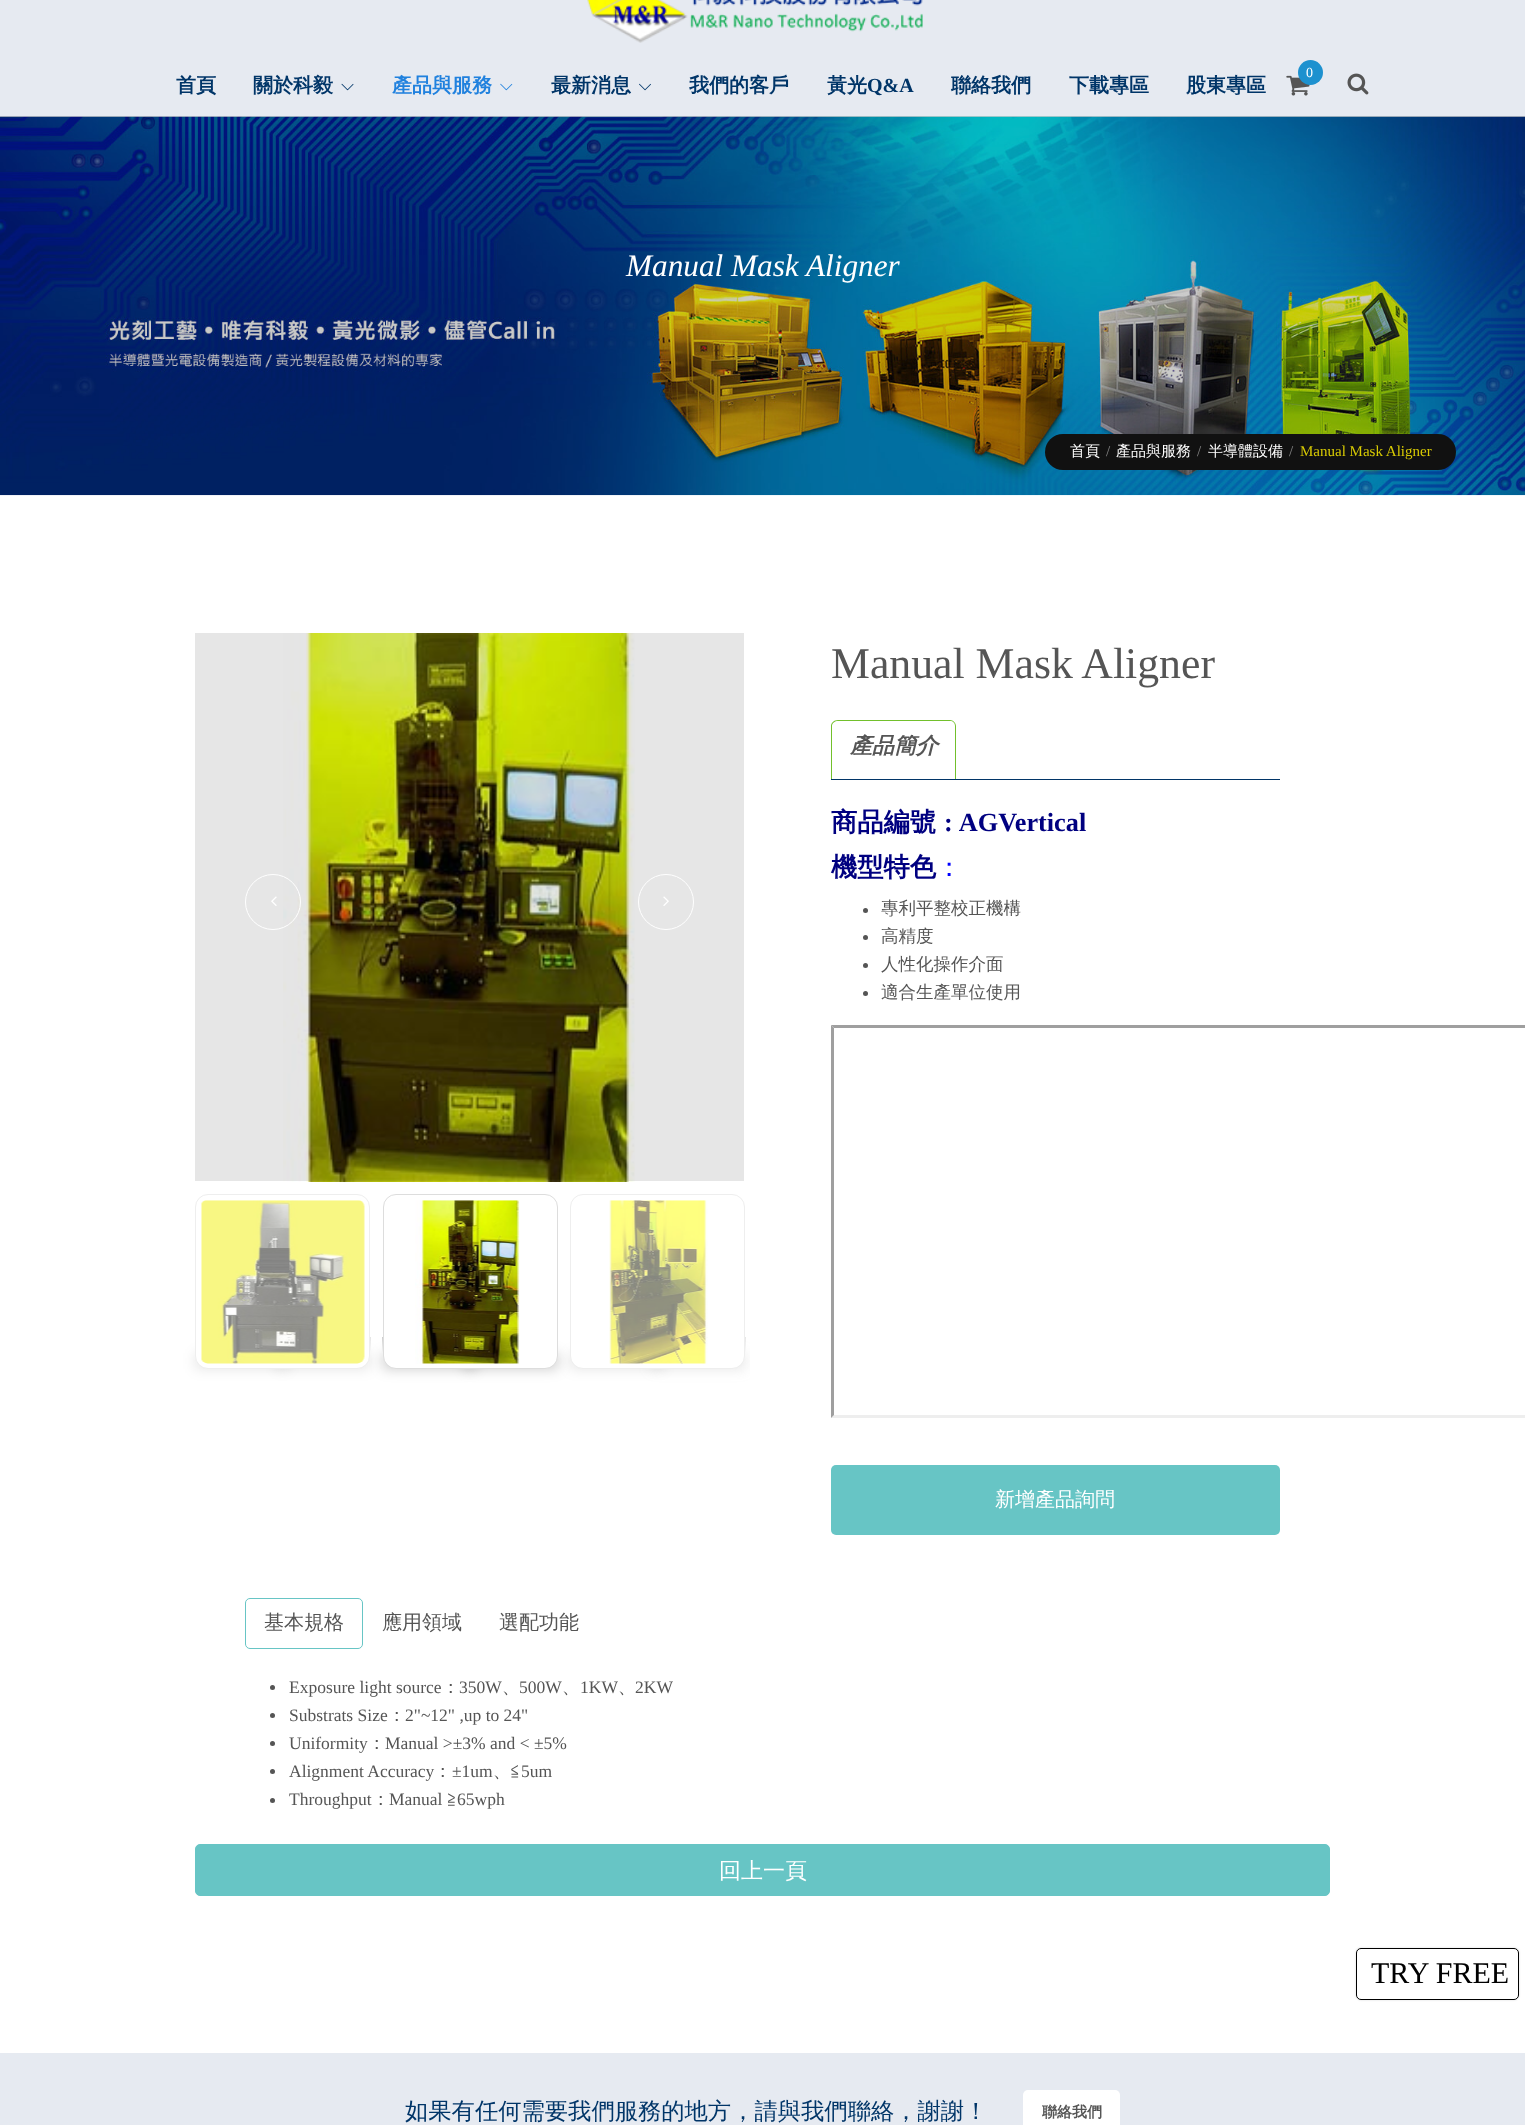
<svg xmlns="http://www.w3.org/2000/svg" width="1525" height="2125">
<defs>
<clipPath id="clip1"><rect x="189" y="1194" width="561" height="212"/></clipPath>
</defs>
<rect width="100%" height="100%" fill="#fff"/>
<rect x="195" y="633" width="549" height="548" fill="#e6e6e6"/>
<rect width="1525" height="116" fill="#e6eaf1"/>
<image x="587" y="0" width="336" height="43" href="media/1.png"/>
<text x="176" y="92" style="font-family:WenQuanYi Zen Hei;font-size:20px;font-weight:bold;fill:#003568">首頁</text>
<text x="253" y="92" style="font-family:WenQuanYi Zen Hei;font-size:20px;font-weight:bold;fill:#003568">關於科毅</text>
<image x="341" y="83" width="13" height="8" href="media/2.png"/>
<text x="392" y="92" style="font-family:WenQuanYi Zen Hei;font-size:20px;font-weight:bold;fill:#2081de">產品與服務</text>
<image x="500" y="83" width="13" height="8" href="media/3.png"/>
<text x="551" y="92" style="font-family:WenQuanYi Zen Hei;font-size:20px;font-weight:bold;fill:#003568">最新消息</text>
<image x="639" y="83" width="12" height="8" href="media/4.png"/>
<text x="689" y="92" style="font-family:WenQuanYi Zen Hei;font-size:20px;font-weight:bold;fill:#003568">我們的客戶</text>
<text x="827" y="92" style="font-family:WenQuanYi Zen Hei;font-size:20px;font-weight:bold;fill:#003568">黃光</text>
<text x="867" y="92" style="font-family:Liberation Serif;font-size:20px;font-weight:bold;fill:#003568">Q&amp;A</text>
<text x="951" y="92" style="font-family:WenQuanYi Zen Hei;font-size:20px;font-weight:bold;fill:#003568">聯絡我們</text>
<text x="1069" y="92" style="font-family:WenQuanYi Zen Hei;font-size:20px;font-weight:bold;fill:#003568">下載專區</text>
<text x="1186" y="92" style="font-family:WenQuanYi Zen Hei;font-size:20px;font-weight:bold;fill:#003568">股東專區</text>
<image x="1286" y="75" width="24" height="21" href="media/5.png"/>
<circle cx="1310.5" cy="72.5" r="12.5" fill="#1d91cf"/>
<text x="1306" y="77" style="font-family:Liberation Serif;font-size:14px;fill:#fff">0</text>
<image x="1347" y="73" width="22" height="22" href="media/6.png"/>
<rect y="116" width="1525" height="1" fill="#ccc"/>
<image x="0" y="116" width="1525" height="380" href="media/7.png"/>
<text x="626" y="276" style="font-family:Liberation Serif;font-size:31.25px;font-style:italic;fill:#fff">Manual Mask Aligner</text>
<rect x="1045" y="434" width="411" height="36" rx="18" fill="#111"/>
<text x="1070" y="456" style="font-family:WenQuanYi Zen Hei;font-size:15px;font-weight:500;fill:#fff">首頁</text>
<text x="1106" y="456" style="font-family:Liberation Serif;font-size:15px;fill:#888">/</text>
<text x="1116" y="456" style="font-family:WenQuanYi Zen Hei;font-size:15px;font-weight:500;fill:#fff">產品與服務</text>
<text x="1197" y="456" style="font-family:Liberation Serif;font-size:15px;fill:#888">/</text>
<text x="1208" y="456" style="font-family:WenQuanYi Zen Hei;font-size:15px;font-weight:500;fill:#fff">半導體設備</text>
<text x="1289" y="456" style="font-family:Liberation Serif;font-size:15px;fill:#888">/</text>
<text x="1300" y="456" style="font-family:Liberation Serif;font-size:15px;fill:#d9cb03">Manual Mask Aligner</text>
<image x="283" y="633" width="352" height="549" href="media/9.png"/>
<circle cx="273" cy="902" r="27.5" fill="none" stroke="#fff"/>
<image x="271" y="896" width="6" height="10" href="media/8.png"/>
<circle cx="666" cy="902" r="27.5" fill="none" stroke="#fff"/>
<image x="663" y="896" width="6" height="10" href="media/10.png"/>
<rect x="195" y="1353" width="94" height="16" fill="#0000001a" filter="blur(6.5px)"/>
<rect x="383" y="1353" width="93" height="16" fill="#00000033" filter="blur(6.5px)"/>
<path d="M382 1337l94-5l1 16l-94 5z" fill="#00000033"/>
<rect x="276" y="1353" width="94" height="16" fill="#0000001a" filter="blur(6.5px)"/>
<path d="M277 1332l94 5l-1 16l-94-5z" fill="#7f7f7f33"/>
<rect x="195.5" y="1194.5" width="174" height="174" rx="12.5" fill="#fff" stroke="#eee"/>
<image x="201" y="1200" width="164" height="164" href="media/11.png"/>
<rect x="464" y="1353" width="94" height="16" fill="#00000033" filter="blur(6.5px)"/>
<rect x="383.5" y="1194.5" width="174" height="174" rx="12.5" fill="#fff" stroke="#ddd"/>
<image x="415" y="1200" width="105" height="164" href="media/12.png"/>
<rect x="570" y="1353" width="94" height="16" fill="#0000001a" filter="blur(6.5px)"/>
<g clip-path="url(#clip1)">
<rect x="651" y="1353" width="94" height="16" fill="#80808033" filter="blur(6.5px)"/>
</g>
<path d="M652 1332l94 5l-1 16l-94-5z" fill="#80808033"/>
<rect x="570.5" y="1194.5" width="174" height="174" rx="12.5" fill="#fff" stroke="#eee"/>
<image x="609" y="1200" width="99" height="164" href="media/13.png"/>
<text x="831" y="678" style="font-family:Liberation Serif;font-size:43.75px;fill:#555">Manual Mask Aligner</text>
<rect x="831" y="779" width="449" height="1" fill="#013567"/>
<path d="M838 720h112c3 0 6 3 6 6v53h-125v-53c0-3 3-6 7-6zm0 1h112c3 0 5 2 5 5v53h-123v-53c0-3 3-5 6-5z" fill="#72c02c" fill-rule="evenodd"/>
<text x="850" y="753" style="font-family:WenQuanYi Zen Hei;font-size:22px;font-weight:bold;font-style:italic;fill:#555">產品簡介</text>
<text x="831" y="831" style="font-family:WenQuanYi Zen Hei;font-size:26.25px;font-weight:bold;fill:#000080">商品編號</text>
<text x="944" y="831" word-spacing="1" style="font-family:Liberation Serif;font-size:26.25px;font-weight:bold;fill:#000080">: AGVertical</text>
<text x="831" y="876" style="font-family:WenQuanYi Zen Hei;font-size:26.25px;font-weight:bold;fill:#000080">機型特色</text>
<text x="936" y="876" style="font-family:WenQuanYi Zen Hei;font-size:26.25px;font-weight:500;fill:#00f">：</text>
<circle cx="865.5" cy="910.5" r="2.5" fill="#555"/>
<text x="881" y="914" style="font-family:WenQuanYi Zen Hei;font-size:17.5px;font-weight:500;fill:#555">專利平整校正機構</text>
<circle cx="865.5" cy="937.5" r="2.5" fill="#555"/>
<text x="881" y="942" style="font-family:WenQuanYi Zen Hei;font-size:17.5px;font-weight:500;fill:#555">高精度</text>
<circle cx="865.5" cy="965.5" r="2.5" fill="#555"/>
<text x="881" y="970" style="font-family:WenQuanYi Zen Hei;font-size:17.5px;font-weight:500;fill:#555">人性化操作介面</text>
<circle cx="865.5" cy="993.5" r="2.5" fill="#555"/>
<text x="881" y="998" style="font-family:WenQuanYi Zen Hei;font-size:17.5px;font-weight:500;fill:#555">適合生產單位使用</text>
<path d="M831 1025h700l-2 3h-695z" fill="#9f9f9f"/>
<path d="M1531 1418h-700l3-3h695z" fill="#eee"/>
<path d="M831 1418v-393l3 3v387z" fill="#9f9f9f"/>
<rect x="831" y="1465" width="449" height="70" rx="5" fill="#67c5c5"/>
<text x="995" y="1506" style="font-family:WenQuanYi Zen Hei;font-size:20px;font-weight:500;fill:#fff">新增產品詢問</text>
<rect x="245.5" y="1598.5" width="117" height="50" rx="4.5" fill="none" stroke="#67c5c5"/>
<text x="264" y="1629" style="font-family:WenQuanYi Zen Hei;font-size:20px;font-weight:500;fill:#555">基本規格</text>
<text x="382" y="1629" style="font-family:WenQuanYi Zen Hei;font-size:20px;font-weight:500;fill:#555">應用領域</text>
<text x="499" y="1629" style="font-family:WenQuanYi Zen Hei;font-size:20px;font-weight:500;fill:#555">選配功能</text>
<circle cx="272.5" cy="1687.5" r="2.5" fill="#555"/>
<text x="289" y="1693" style="font-family:Liberation Serif;font-size:17.5px;fill:#555">Exposure light source</text>
<text x="442" y="1693" style="font-family:WenQuanYi Zen Hei;font-size:17.5px;font-weight:500;fill:#555">：</text>
<text x="459" y="1693" style="font-family:Liberation Serif;font-size:17.5px;fill:#555">350W</text>
<text x="519" y="1693" style="font-family:Liberation Serif;font-size:17.5px;fill:#555">500W</text>
<text x="580" y="1693" style="font-family:Liberation Serif;font-size:17.5px;fill:#555">1KW</text>
<text x="635" y="1693" style="font-family:Liberation Serif;font-size:17.5px;fill:#555">2KW</text>
<text x="502" y="1693" style="font-family:WenQuanYi Zen Hei;font-size:17.5px;font-weight:500;fill:#555">、</text>
<text x="562" y="1693" style="font-family:WenQuanYi Zen Hei;font-size:17.5px;font-weight:500;fill:#555">、</text>
<text x="618" y="1693" style="font-family:WenQuanYi Zen Hei;font-size:17.5px;font-weight:500;fill:#555">、</text>
<circle cx="272.5" cy="1715.5" r="2.5" fill="#555"/>
<text x="289" y="1721" style="font-family:Liberation Serif;font-size:17.5px;fill:#555">Substrats Size</text>
<text x="388" y="1721" style="font-family:WenQuanYi Zen Hei;font-size:17.5px;font-weight:500;fill:#555">：</text>
<text x="405" y="1721" style="font-family:Liberation Serif;font-size:17.5px;fill:#555">2"~12" ,up to 24"</text>
<circle cx="272.5" cy="1743.5" r="2.5" fill="#555"/>
<text x="289" y="1749" style="font-family:Liberation Serif;font-size:17.5px;fill:#555">Uniformity</text>
<text x="368" y="1749" style="font-family:WenQuanYi Zen Hei;font-size:17.5px;font-weight:500;fill:#555">：</text>
<text x="385" y="1749" style="font-family:Liberation Serif;font-size:17.5px;fill:#555">Manual &gt;±3% and &lt; ±5%</text>
<circle cx="272.5" cy="1771.5" r="2.5" fill="#555"/>
<text x="289" y="1777" style="font-family:Liberation Serif;font-size:17.5px;fill:#555">Alignment Accuracy</text>
<text x="434" y="1777" style="font-family:WenQuanYi Zen Hei;font-size:17.5px;font-weight:500;fill:#555">：</text>
<text x="452" y="1777" style="font-family:Liberation Serif;font-size:17.5px;fill:#555">±1um</text>
<text x="493" y="1777" style="font-family:WenQuanYi Zen Hei;font-size:17.5px;font-weight:500;fill:#555">、≦</text>
<text x="521" y="1777" style="font-family:Liberation Serif;font-size:17.5px;fill:#555">5um</text>
<circle cx="272.5" cy="1800.5" r="2.5" fill="#555"/>
<text x="289" y="1805" style="font-family:Liberation Serif;font-size:17.5px;fill:#555">Throughput</text>
<text x="372" y="1805" style="font-family:WenQuanYi Zen Hei;font-size:17.5px;font-weight:500;fill:#555">：</text>
<text x="389" y="1805" style="font-family:Liberation Serif;font-size:17.5px;fill:#555">Manual</text>
<text x="447" y="1805" style="font-family:WenQuanYi Zen Hei;font-size:17.5px;font-weight:500;fill:#555">≧</text>
<text x="457" y="1805" style="font-family:Liberation Serif;font-size:17.5px;fill:#555">65wph</text>
<rect x="195.5" y="1844.5" width="1134" height="51" rx="4.5" fill="#67c5c5" stroke="#67c5c5"/>
<text x="719" y="1878" style="font-family:WenQuanYi Zen Hei;font-size:22px;font-weight:500;fill:#fff">回上一頁</text>
<rect x="1356" y="1948" width="163" height="52" rx="5" fill="#ddd" filter="blur(1px)"/>
<rect x="1356.5" y="1948.5" width="162" height="51" rx="4.5" fill="#fff" stroke="#000"/>
<text x="1371" y="1983" style="font-family:Liberation Serif;font-size:30px;fill:#000">TRY FREE</text>
<rect y="2053" width="1525" height="72" fill="#e6eaf1"/>
<text x="405" y="2119" style="font-family:WenQuanYi Zen Hei;font-size:23.3px;font-weight:500;fill:#003568">如果有任何需要我們服務的地方，請與我們聯絡，謝謝！</text>
<rect x="1023" y="2090" width="97" height="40" rx="5" fill="#fff"/>
<text x="1042" y="2117" style="font-family:WenQuanYi Zen Hei;font-size:15px;font-weight:bold;fill:#555">聯絡我們</text>
</svg>
